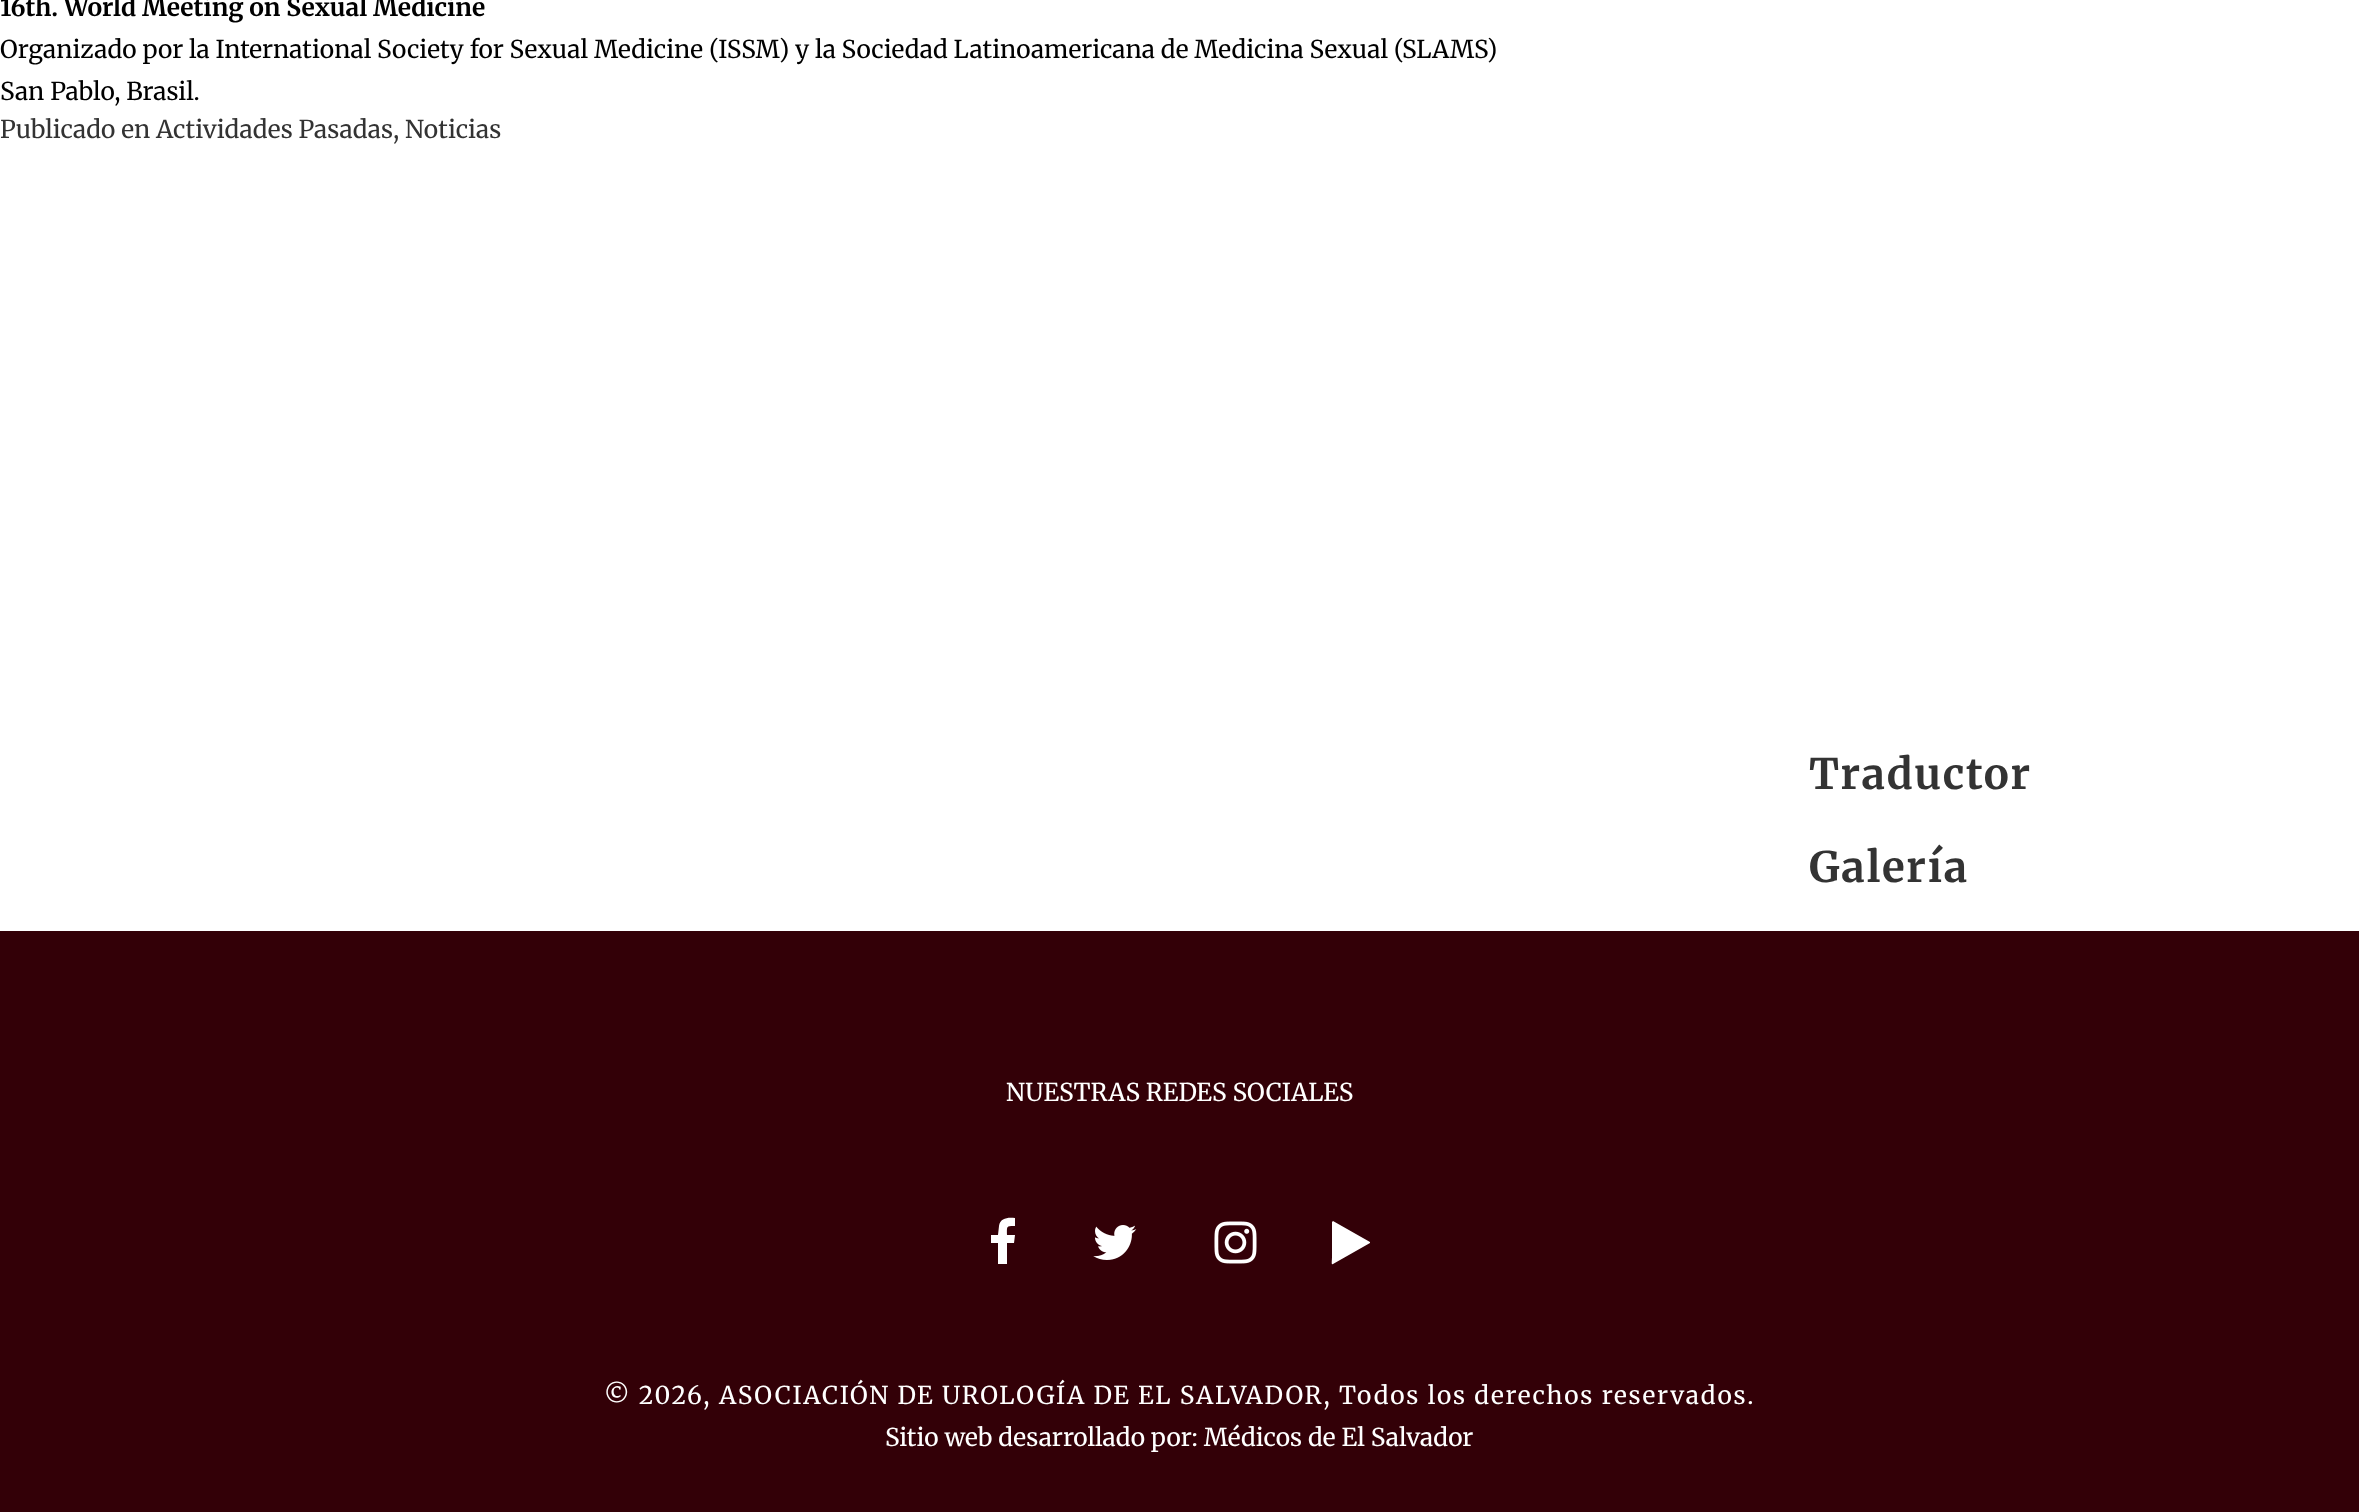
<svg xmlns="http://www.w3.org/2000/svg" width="2359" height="1512">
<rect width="100%" height="100%" fill="#fff"/>
<text x="0" y="16" style="font-family:Merriweather;font-size:24.5px;font-weight:bold;fill:#000">16th. World Meeting on Sexual Medicine</text>
<text x="0" y="58" style="font-family:Merriweather;font-size:24.5px;fill:#000">Organizado por la International Society for Sexual Medicine (ISSM) y la Sociedad Latinoamericana de Medicina Sexual (SLAMS)</text>
<text x="0" y="100" style="font-family:Merriweather;font-size:24.5px;fill:#000">San Pablo, Brasil.</text>
<text x="0" y="138" style="font-family:Merriweather;font-size:24.5px;fill:#333">Publicado en Actividades Pasadas, Noticias</text>
<text x="1809" y="789" style="font-family:Merriweather;font-size:42px;font-weight:bold;letter-spacing:1.75px;fill:#333">Traductor</text>
<text x="1809" y="882" style="font-family:Merriweather;font-size:42px;font-weight:bold;letter-spacing:1.75px;fill:#333">Galería</text>
<rect y="931" width="2359" height="581" fill="#330007"/>
<text x="1006" y="1101" style="font-family:Merriweather;font-size:24.5px;fill:#fff">NUESTRAS REDES SOCIALES</text>
<path d="M1015 1218c-7-1-15 0-16 8l-1 9h-7v8h7v21h9v-21h7l1-8h-8c0-9-1-9 8-9z" fill="#fff"/>
<image x="1093" y="1225" width="44" height="35" href="media/1.png"/>
<image x="1214" y="1221" width="43" height="43" href="media/2.png"/>
<path d="M1370 1243c0 0 0-1 0-1l-37-21l-1 1v34c0 6-1 9 1 8z" fill="#fff"/>
<text x="604" y="1404" style="font-family:Merriweather;font-size:24.5px;letter-spacing:1.75px;fill:#fff">© 2026, ASOCIACIÓN DE UROLOGÍA DE EL SALVADOR, Todos los derechos reservados.</text>
<text x="885" y="1446" style="font-family:Merriweather;font-size:24.5px;fill:#fff">Sitio web desarrollado por: Médicos de El Salvador</text>
</svg>
